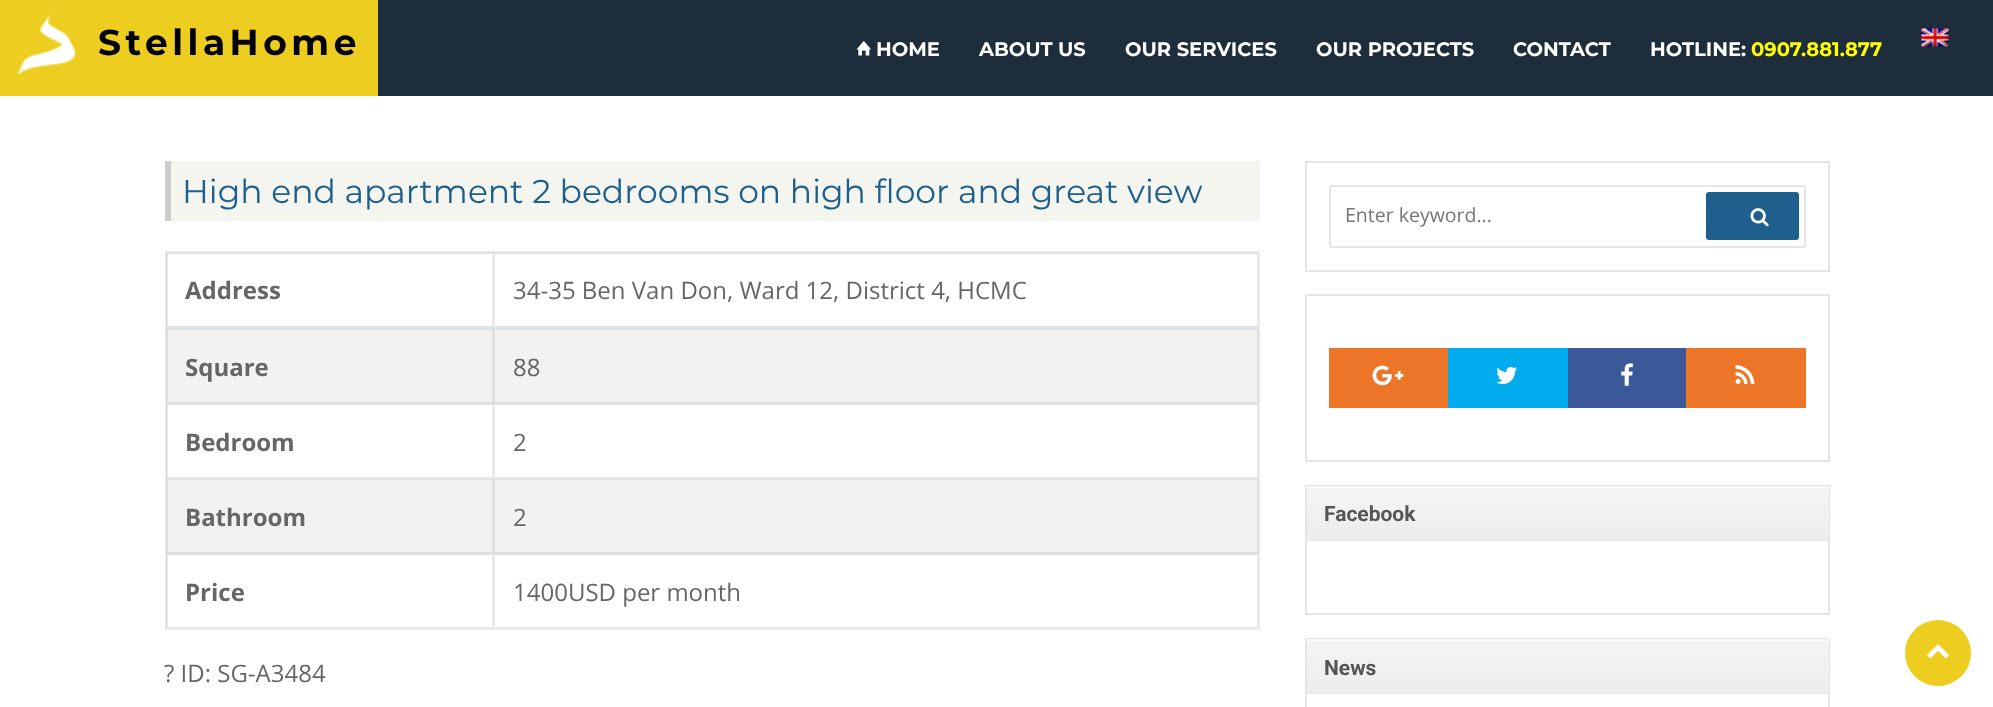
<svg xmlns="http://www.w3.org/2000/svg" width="1993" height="707">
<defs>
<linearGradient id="g1" gradientUnits="userSpaceOnUse" x1="1568" y1="486" x2="1568" y2="539"><stop offset="0" stop-color="#eee"/><stop offset="0.03" stop-color="#fff"/><stop offset="0.04" stop-color="#f4f4f4"/><stop offset="1" stop-color="#ededed"/></linearGradient>
<linearGradient id="g2" gradientUnits="userSpaceOnUse" x1="1568" y1="639" x2="1568" y2="692"><stop offset="0" stop-color="#eee"/><stop offset="0.03" stop-color="#fff"/><stop offset="0.04" stop-color="#f4f4f4"/><stop offset="1" stop-color="#ededed"/></linearGradient>
</defs>
<rect width="100%" height="100%" fill="#fff"/>
<rect x="378" width="1615" height="96" fill="#1e2d3b"/>
<rect width="378" height="96" fill="#edcd1f"/>
<image x="16" y="14" width="61" height="62" href="media/1.png"/>
<text x="98" y="55" style="font-family:Montserrat;font-size:36px;font-weight:bold;letter-spacing:4.5px;fill:#000">StellaHome</text>
<image x="1921" y="28" width="28" height="19" href="media/2.png"/>
<image x="856" y="41" width="15" height="15" href="media/3.png"/>
<text x="876" y="56" style="font-family:Montserrat;font-size:19.5px;font-weight:bold;fill:#fff">HOME</text>
<text x="979" y="56" style="font-family:Montserrat;font-size:19.5px;font-weight:bold;fill:#fff">ABOUT US</text>
<text x="1125" y="56" style="font-family:Montserrat;font-size:19.5px;font-weight:bold;fill:#fff">OUR SERVICES</text>
<text x="1316" y="56" style="font-family:Montserrat;font-size:19.5px;font-weight:bold;fill:#fff">OUR PROJECTS</text>
<text x="1513" y="56" style="font-family:Montserrat;font-size:19.5px;font-weight:bold;fill:#fff">CONTACT</text>
<text x="1650" y="56" style="font-family:Montserrat;font-size:19.5px;font-weight:bold;fill:#fff">HOTLINE:</text>
<text x="1751" y="56" style="font-family:Montserrat;font-size:19.5px;font-weight:bold;fill:#ff0">0907.881.877</text>
<rect x="171" y="161" width="1089" height="60" fill="#f4f5ee"/>
<rect x="165" y="161" width="6" height="60" fill="#ccc"/>
<text x="182" y="203" style="font-family:Montserrat;font-size:33px;fill:#1e5f8d">High end apartment 2 bedrooms on high floor and great view</text>
<rect x="166" y="252" width="1093" height="377" fill="none" stroke="#ebebeb" stroke-width="2"/>
<path d="M166 252h328l-2 2h-324z" fill="#dee2e6"/>
<path d="M494 252v76l-2-2v-72z" fill="#3333331a"/>
<path d="M494 328h-328l2-2h324z" fill="#dee2e6"/>
<path d="M166 328v-76l2 2v72z" fill="#3333331a"/>
<text x="185" y="299" style="font-family:Open Sans;font-size:24px;font-weight:bold;fill:#666">Address</text>
<path d="M494 252h764l-1 2h-762z" fill="#dee2e6"/>
<path d="M1258 252v76l-1-2v-72z" fill="#3333331a"/>
<path d="M1258 328h-764l1-2h762z" fill="#dee2e6"/>
<path d="M494 328v-76l1 2v72z" fill="#3333331a"/>
<text x="513" y="299" style="font-family:Open Sans;font-size:24px;fill:#666">34-35 Ben Van Don, Ward 12, District 4, HCMC</text>
<rect x="167" y="329" width="1092" height="75" fill="#0000000d"/>
<path d="M166 328h328l-2 2h-324z" fill="#dee2e6"/>
<path d="M494 328v76l-2-2v-72z" fill="#3333331a"/>
<path d="M494 404h-328l2-2h324z" fill="#3333331a"/>
<path d="M166 404v-76l2 2v72z" fill="#3333331a"/>
<text x="185" y="376" style="font-family:Open Sans;font-size:24px;font-weight:bold;fill:#666">Square</text>
<path d="M494 328h764l-1 2h-762z" fill="#dee2e6"/>
<path d="M1258 328v76l-1-2v-72z" fill="#3333331a"/>
<path d="M1258 404h-764l1-2h762z" fill="#3333331a"/>
<path d="M494 404v-76l1 2v72z" fill="#3333331a"/>
<text x="513" y="376" style="font-family:Open Sans;font-size:24px;fill:#666">88</text>
<path d="M166 404h328l-2 1h-324z" fill="#dee2e6"/>
<path d="M494 404v74l-2-1v-72z" fill="#3333331a"/>
<path d="M494 478h-328l2-1h324z" fill="#3333331a"/>
<path d="M166 478v-74l2 1v72z" fill="#3333331a"/>
<text x="185" y="451" style="font-family:Open Sans;font-size:24px;font-weight:bold;fill:#666">Bedroom</text>
<path d="M494 404h764l-1 1h-762z" fill="#dee2e6"/>
<path d="M1258 404v74l-1-1v-72z" fill="#3333331a"/>
<path d="M1258 478h-764l1-1h762z" fill="#3333331a"/>
<path d="M494 478v-74l1 1v72z" fill="#3333331a"/>
<text x="513" y="451" style="font-family:Open Sans;font-size:24px;fill:#666">2</text>
<rect x="167" y="479" width="1092" height="75" fill="#0000000d"/>
<path d="M166 478h328l-2 2h-324z" fill="#dee2e6"/>
<path d="M494 478v76l-2-2v-72z" fill="#3333331a"/>
<path d="M494 554h-328l2-2h324z" fill="#3333331a"/>
<path d="M166 554v-76l2 2v72z" fill="#3333331a"/>
<text x="185" y="526" style="font-family:Open Sans;font-size:24px;font-weight:bold;fill:#666">Bathroom</text>
<path d="M494 478h764l-1 2h-762z" fill="#dee2e6"/>
<path d="M1258 478v76l-1-2v-72z" fill="#3333331a"/>
<path d="M1258 554h-764l1-2h762z" fill="#3333331a"/>
<path d="M494 554v-76l1 2v72z" fill="#3333331a"/>
<text x="513" y="526" style="font-family:Open Sans;font-size:24px;fill:#666">2</text>
<path d="M166 554h328l-2 1h-324z" fill="#dee2e6"/>
<path d="M494 554v74l-2-1v-72z" fill="#3333331a"/>
<path d="M494 628h-328l2-1h324z" fill="#3333331a"/>
<path d="M166 628v-74l2 1v72z" fill="#3333331a"/>
<text x="185" y="601" style="font-family:Open Sans;font-size:24px;font-weight:bold;fill:#666">Price</text>
<path d="M494 554h764l-1 1h-762z" fill="#dee2e6"/>
<path d="M1258 554v74l-1-1v-72z" fill="#3333331a"/>
<path d="M1258 628h-764l1-1h762z" fill="#3333331a"/>
<path d="M494 628v-74l1 1v72z" fill="#3333331a"/>
<text x="513" y="601" style="font-family:Open Sans;font-size:24px;fill:#666">1400USD per month</text>
<text x="164" y="682" style="font-family:Open Sans;font-size:24px;fill:#666">? ID: SG-A3484</text>
<rect x="1306" y="162" width="523" height="109" fill="none" stroke="#e5e5e5" stroke-width="2"/>
<rect x="1330" y="186" width="475" height="61" rx="2" fill="none" stroke="#e5e5e5" stroke-width="2"/>
<text x="1345" y="222" style="font-family:Open Sans;font-size:19.5px;fill:#757575">Enter keyword...</text>
<rect x="1706" y="192" width="93" height="48" rx="3" fill="#1e5f8d"/>
<image x="1750" y="208" width="19" height="19" href="media/4.png"/>
<rect x="1306" y="295" width="523" height="166" fill="none" stroke="#e5e5e5" stroke-width="2"/>
<rect x="1329" y="348" width="119" height="60" fill="#ed7527"/>
<image x="1372" y="365" width="32" height="21" href="media/5.png"/>
<rect x="1448" y="348" width="120" height="60" fill="#00aced"/>
<image x="1496" y="366" width="21" height="18" href="media/6.png"/>
<rect x="1568" y="348" width="118" height="60" fill="#3b5998"/>
<image x="1621" y="363" width="12" height="23" href="media/7.png"/>
<rect x="1686" y="348" width="120" height="60" fill="#ed7527"/>
<image x="1735" y="365" width="20" height="19" href="media/8.png"/>
<rect x="1306" y="486" width="523" height="128" fill="none" stroke="#e5e5e5" stroke-width="2"/>
<rect x="1307" y="486" width="522" height="53" fill="url(#g1)"/>
<rect x="1307" y="539" width="522" height="2" fill="#e9e9e9"/>
<text x="1324" y="521" style="font-family:Roboto;font-size:21px;font-weight:bold;fill:#555">Facebook</text>
<rect x="1306" y="639" width="523" height="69" fill="none" stroke="#e5e5e5" stroke-width="2"/>
<rect x="1307" y="639" width="522" height="53" fill="url(#g2)"/>
<rect x="1307" y="692" width="522" height="2" fill="#e9e9e9"/>
<text x="1324" y="675" style="font-family:Roboto;font-size:21px;font-weight:bold;fill:#555">News</text>
<circle cx="1938" cy="653" r="33" fill="#edcd1f"/>
<image x="1927" y="644" width="22" height="15" href="media/9.png"/>
</svg>
